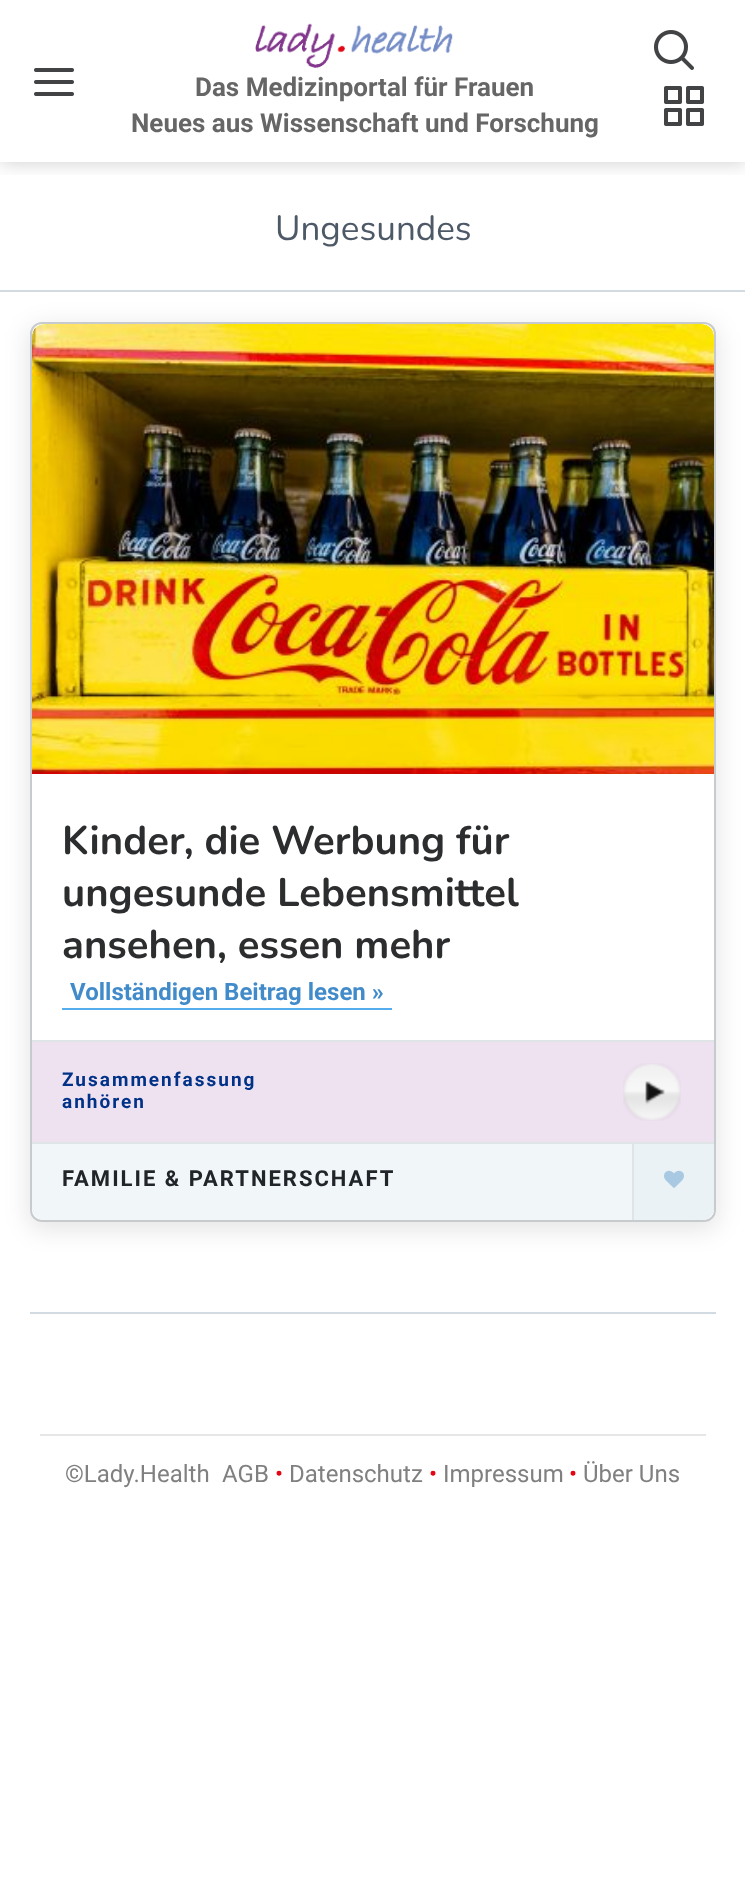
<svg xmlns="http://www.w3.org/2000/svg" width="745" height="1883">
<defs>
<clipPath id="clip1"><rect x="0" y="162" width="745" height="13"/></clipPath>
</defs>
<rect width="100%" height="100%" fill="#fff"/>
<g clip-path="url(#clip1)">
<rect width="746" height="162" fill="#00000033" filter="blur(10px)"/>
</g>
<image x="34" y="68" width="40" height="28" href="media/1.png"/>
<image x="255" y="23" width="198" height="45" href="media/2.png"/>
<text x="195" y="96" style="font-family:Roboto;font-size:26px;font-weight:bold;fill:#666">Das Medizinportal für Frauen</text>
<text x="131" y="132" style="font-family:Roboto;font-size:26px;font-weight:bold;fill:#666">Neues aus Wissenschaft und Forschung</text>
<image x="654" y="30" width="40" height="40" href="media/3.png"/>
<image x="664" y="86" width="40" height="40" href="media/4.png"/>
<rect y="290" width="745" height="2" fill="#d1dbe1"/>
<text x="275" y="240" style="font-family:Nunito;font-size:35px;fill:#4e5968">Ungesundes</text>
<rect x="28" y="326" width="690" height="904" rx="14" fill="#0000001a" filter="blur(12px)"/>
<rect x="31" y="323" width="684" height="898" rx="11" fill="#fff" stroke="#c8cbcd" stroke-width="2"/>
<image x="32" y="324" width="682" height="450" href="media/5.png"/>
<text x="62" y="854" style="font-family:Nunito;font-size:40px;font-weight:bold;fill:#2c2d2f">Kinder, die Werbung für</text>
<text x="62" y="906" style="font-family:Nunito;font-size:40px;font-weight:bold;fill:#2c2d2f">ungesunde Lebensmittel</text>
<text x="62" y="958" style="font-family:Nunito;font-size:40px;font-weight:bold;fill:#2c2d2f">ansehen, essen mehr</text>
<rect x="62" y="1008" width="330" height="2" fill="#55aded"/>
<text x="70" y="1000" style="font-family:Roboto;font-size:24px;font-weight:bold;fill:#428bca">Vollständigen Beitrag lesen »</text>
<rect x="32" y="1042" width="682" height="100" fill="#eee1f0"/>
<rect x="32" y="1040" width="682" height="2" fill="#dfe4e7"/>
<text x="62" y="1086" style="font-family:Roboto;font-size:19px;font-weight:bold;letter-spacing:2px;fill:#003288">Zusammenfassung</text>
<text x="62" y="1108" style="font-family:Roboto;font-size:19px;font-weight:bold;letter-spacing:2px;fill:#003288">anhören</text>
<image x="623" y="1063" width="58" height="58" href="media/6.png"/>
<path d="M32 1142h682v66c0 6.5-5.5 12-12 12h-658c-6.5 0-12-5.5-12-12z" fill="#f1f6f8"/>
<rect x="32" y="1142" width="682" height="2" fill="#dfe4e7"/>
<text x="62" y="1186" style="font-family:Roboto;font-size:22px;font-weight:bold;letter-spacing:2px;fill:#212529">FAMILIE &amp; PARTNERSCHAFT</text>
<path d="M632 1144h82v64c0 6.5-5.5 12-12 12h-70z" fill="#eaf2f5"/>
<rect x="632" y="1144" width="2" height="76" fill="#dfe4e7"/>
<image x="664" y="1170" width="20" height="18" href="media/7.png"/>
<rect x="30" y="1312" width="686" height="2" fill="#d1dbe1"/>
<rect x="40" y="1434" width="666" height="2" fill="#e6e6e6"/>
<text x="65" y="1482" style="font-family:Roboto;font-size:24px;fill:#808080">©Lady.Health</text>
<text x="222" y="1482" style="font-family:Roboto;font-size:24px;fill:#808080">AGB</text>
<text x="275" y="1482" style="font-family:Roboto;font-size:24px;fill:#e30613">•</text>
<text x="289" y="1482" style="font-family:Roboto;font-size:24px;fill:#808080">Datenschutz</text>
<text x="429" y="1482" style="font-family:Roboto;font-size:24px;fill:#e30613">•</text>
<text x="443" y="1482" style="font-family:Roboto;font-size:24px;fill:#808080">Impressum</text>
<text x="569" y="1482" style="font-family:Roboto;font-size:24px;fill:#e30613">•</text>
<text x="583" y="1482" style="font-family:Roboto;font-size:24px;fill:#808080">Über Uns</text>
</svg>
